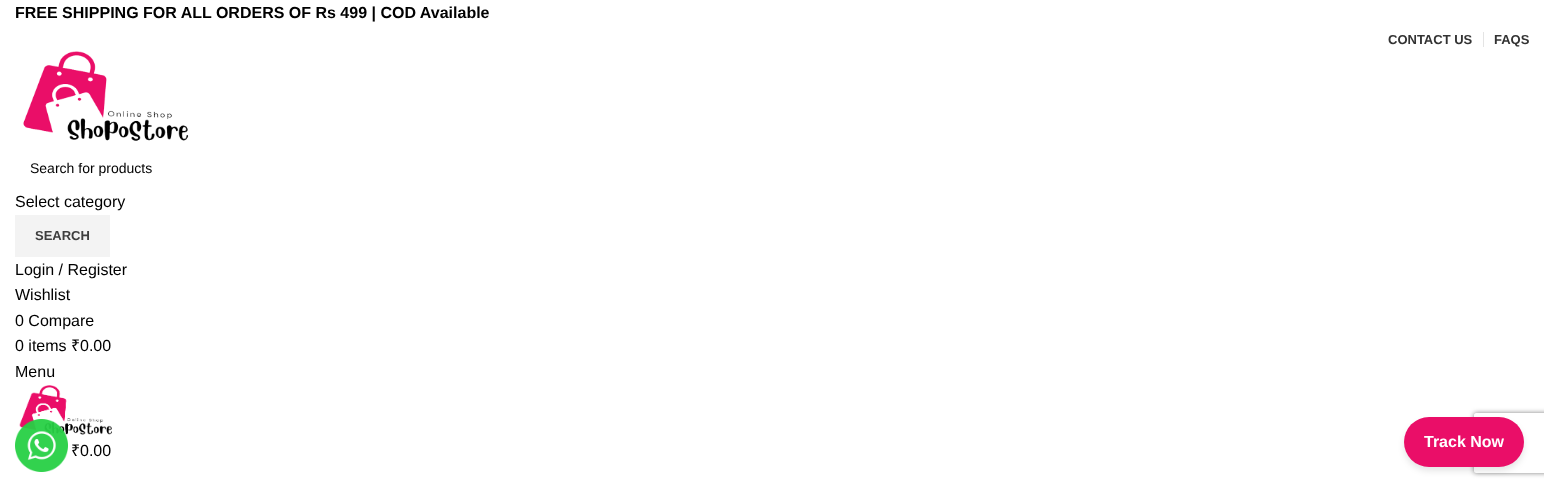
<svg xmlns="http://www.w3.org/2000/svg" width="1544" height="487">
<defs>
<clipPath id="clip1"><path d="M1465 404h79v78h-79zm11 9h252c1 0 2 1 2 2v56c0 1-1 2-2 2h-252c-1 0-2-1-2-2v-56c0-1 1-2 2-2z" clip-rule="evenodd"/></clipPath>
</defs>
<rect width="100%" height="100%" fill="#fff"/>
<text x="15" y="18" style="font-family:Liberation Sans;font-size:16px;font-weight:bold;fill:#000">FREE SHIPPING FOR ALL ORDERS OF Rs 499 | COD Available</text>
<text x="1388" y="44" style="font-family:Liberation Sans;font-size:13px;font-weight:bold;fill:#333">CONTACT US</text>
<rect x="1483" y="32" width="1" height="15" fill="#e4e4e4"/>
<text x="1494" y="44" style="font-family:Liberation Sans;font-size:13px;font-weight:bold;fill:#333">FAQS</text>
<image x="23" y="51" width="166" height="90" href="media/1.png"/>
<text x="30" y="173" style="font-family:Liberation Sans;font-size:14px;fill:#000">Search for products</text>
<text x="15" y="207" style="font-family:Liberation Sans;font-size:16px;fill:#000">Select category</text>
<rect x="15" y="215" width="95" height="42" fill="#f3f3f3"/>
<text x="35" y="240" style="font-family:Liberation Sans;font-size:13px;font-weight:bold;fill:#3e3e3e">SEARCH</text>
<text x="15" y="275" style="font-family:Liberation Sans;font-size:16px;fill:#000">Login / Register</text>
<text x="15" y="300" style="font-family:Liberation Sans;font-size:16px;fill:#000">Wishlist</text>
<text x="15" y="326" style="font-family:Liberation Sans;font-size:16px;fill:#000">0 Compare</text>
<text x="15" y="351" style="font-family:Liberation Sans;font-size:16px;fill:#000">0 items</text>
<text x="71" y="351" style="font-family:Noto Sans;font-size:16px;fill:#000">₹</text>
<text x="80" y="351" style="font-family:Liberation Sans;font-size:16px;fill:#000">0.00</text>
<text x="15" y="377" style="font-family:Liberation Sans;font-size:16px;fill:#000">Menu</text>
<image x="19" y="385" width="93" height="50" href="media/2.png"/>
<text x="71" y="456" style="font-family:Noto Sans;font-size:16px;fill:#000">₹</text>
<text x="80" y="456" style="font-family:Liberation Sans;font-size:16px;fill:#000">0.00</text>
<image x="15" y="419" width="53" height="53" href="media/3.png"/>
<g clip-path="url(#clip1)">
<rect x="1474" y="413" width="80" height="60" rx="2" fill="#808080" filter="blur(2.5px)"/>
</g>
<rect x="1404" y="421" width="120" height="50" rx="25" fill="#0000001a" filter="blur(3px)"/>
<rect x="1404" y="417" width="120" height="50" rx="25" fill="#ea0e68"/>
<text x="1424" y="447" style="font-family:Liberation Sans;font-size:16px;font-weight:bold;fill:#fff">Track Now</text>
</svg>
